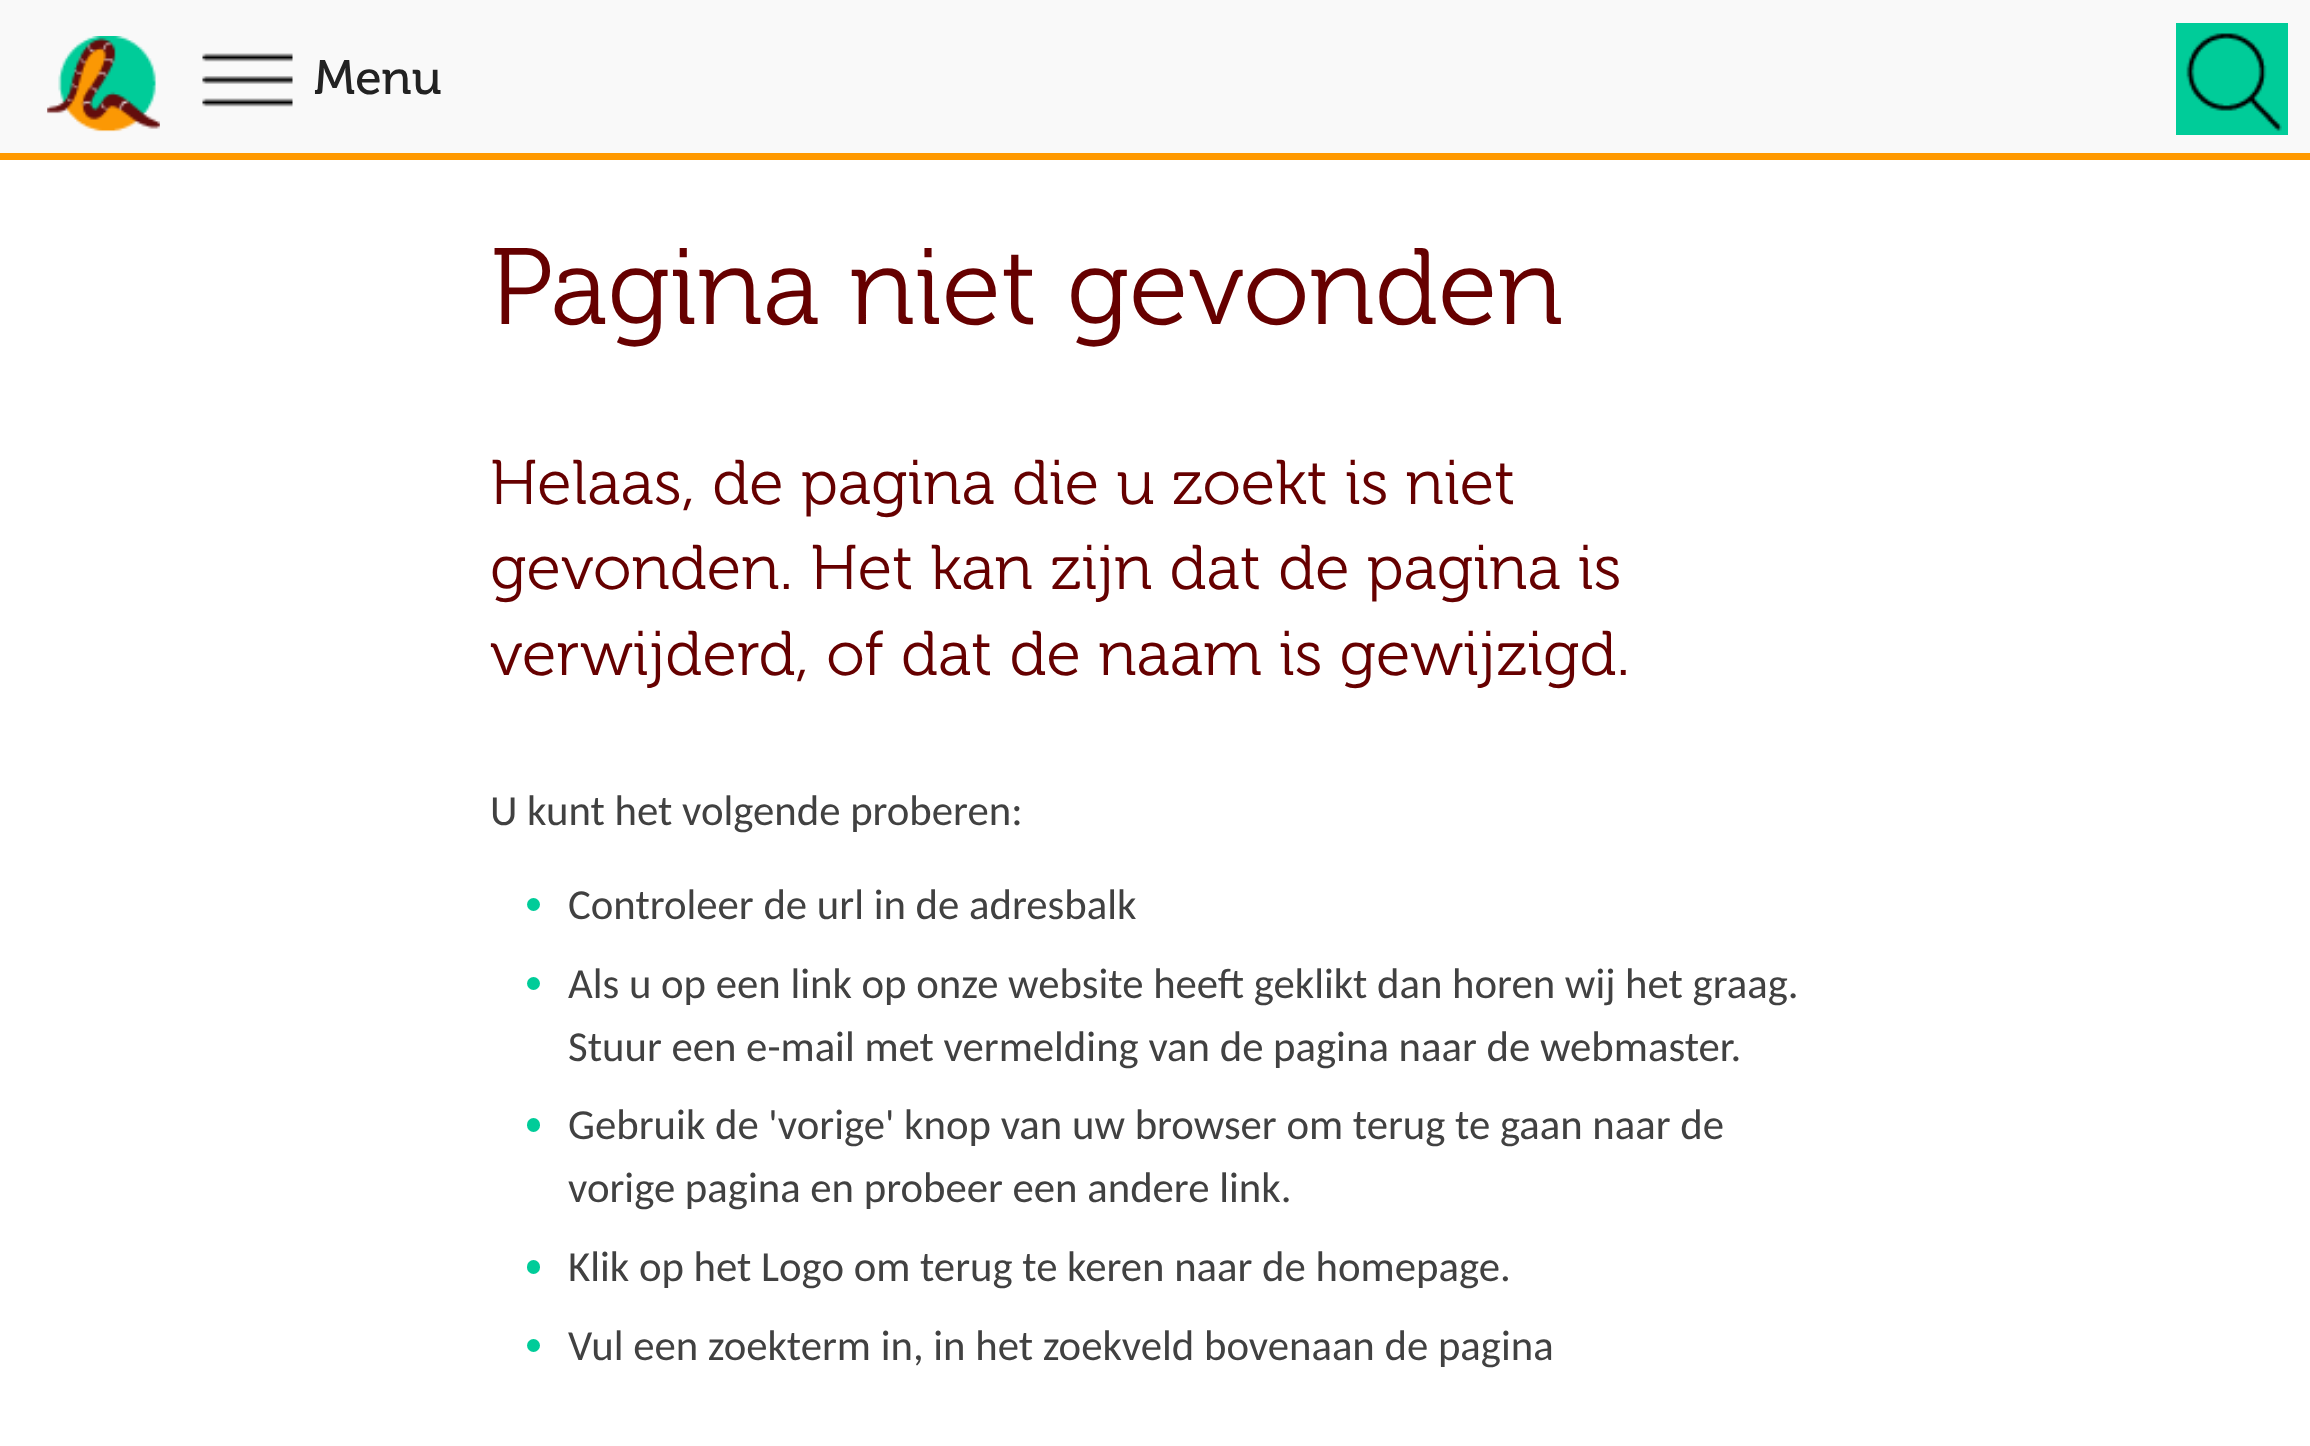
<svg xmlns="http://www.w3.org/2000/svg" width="2310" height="1446">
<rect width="100%" height="100%" fill="#fff"/>
<rect y="153" width="2310" height="7" fill="#f90"/>
<rect width="2310" height="153" fill="#f9f9f9"/>
<image x="47" y="36" width="113" height="96" href="media/1.png"/>
<image x="202" y="53" width="91" height="54" href="media/2.png"/>
<text x="314" y="94" style="font-family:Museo;font-size:48px;fill:#222">Menu</text>
<rect x="2176" y="23" width="112" height="112" fill="#0c9"/>
<image x="2186" y="33" width="96" height="99" href="media/3.png"/>
<text x="490" y="324" style="font-family:Museo;font-size:108px;font-weight:300;fill:#600">Pagina niet gevonden</text>
<text x="490" y="504" style="font-family:Museo;font-size:63px;font-weight:300;fill:#600">Helaas, de pagina die u zoekt is niet</text>
<text x="490" y="589" style="font-family:Museo;font-size:63px;font-weight:300;fill:#600">gevonden. Het kan zijn dat de pagina is</text>
<text x="490" y="675" style="font-family:Museo;font-size:63px;font-weight:300;fill:#600">verwijderd, of dat de naam is gewijzigd.</text>
<text x="490" y="825" style="font-family:Carlito;font-size:42.75px;fill:#414141">U kunt het volgende proberen:</text>
<circle cx="533.5" cy="904.5" r="6.5" fill="#0c9"/>
<text x="568" y="919" style="font-family:Carlito;font-size:42.75px;fill:#414141">Controleer de url in de adresbalk</text>
<circle cx="533.5" cy="983.5" r="6.5" fill="#0c9"/>
<text x="568" y="998" style="font-family:Carlito;font-size:42.75px;fill:#414141">Als u op een link op onze website heeft geklikt dan horen wij het graag.</text>
<text x="568" y="1061" style="font-family:Carlito;font-size:42.75px;fill:#414141">Stuur een e-mail met vermelding van de pagina naar de webmaster.</text>
<rect x="527" y="1118" width="13" height="14" rx="6.5" fill="#0c9"/>
<text x="568" y="1139" style="font-family:Carlito;font-size:42.75px;fill:#414141">Gebruik de 'vorige' knop van uw browser om terug te gaan naar de</text>
<text x="568" y="1202" style="font-family:Carlito;font-size:42.75px;fill:#414141">vorige pagina en probeer een andere link.</text>
<rect x="527" y="1260" width="13" height="14" rx="6.5" fill="#0c9"/>
<text x="568" y="1281" style="font-family:Carlito;font-size:42.75px;fill:#414141">Klik op het Logo om terug te keren naar de homepage.</text>
<circle cx="533.5" cy="1345.5" r="6.5" fill="#0c9"/>
<text x="568" y="1360" style="font-family:Carlito;font-size:42.75px;fill:#414141">Vul een zoekterm in, in het zoekveld bovenaan de pagina</text>
</svg>
